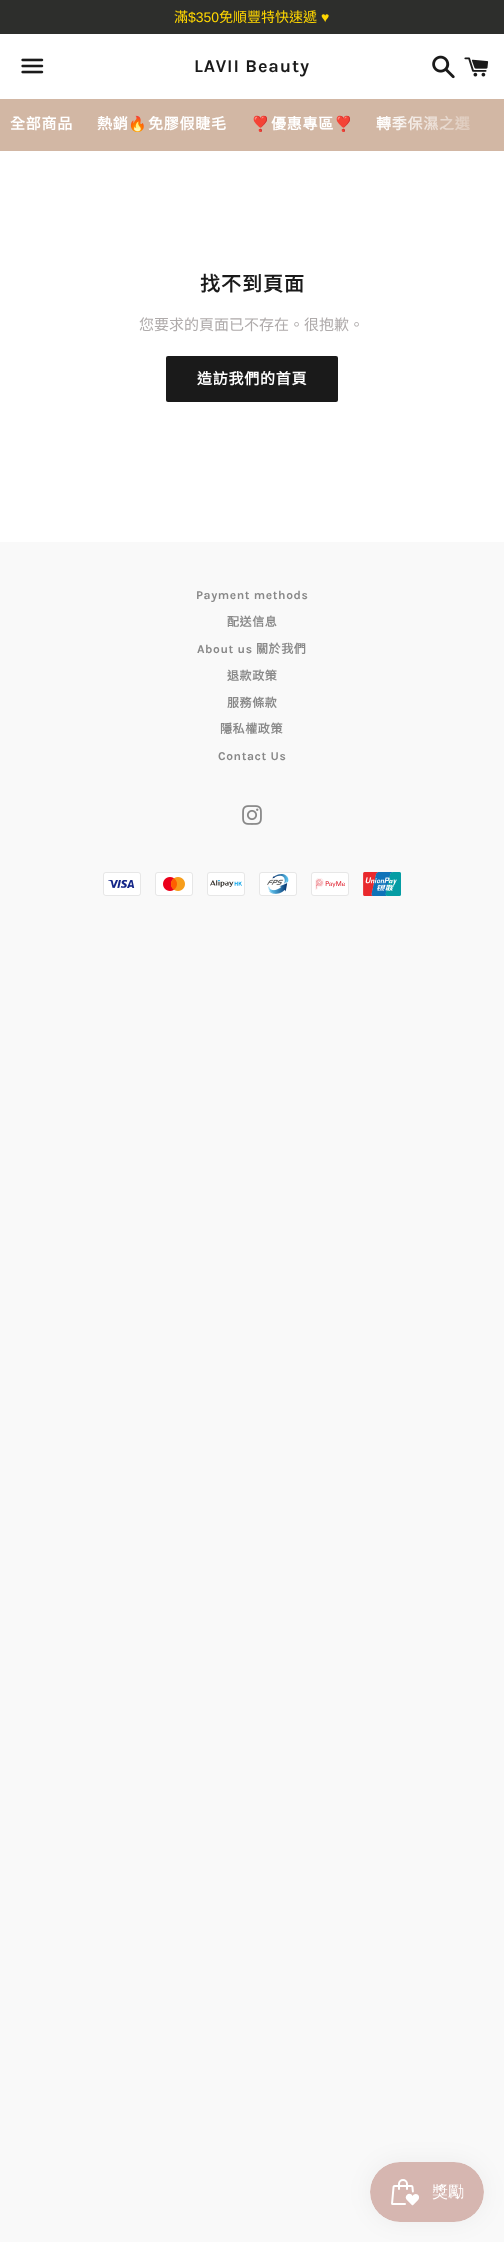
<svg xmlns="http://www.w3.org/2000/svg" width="504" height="2242">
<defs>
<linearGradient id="g1" gradientUnits="userSpaceOnUse" x1="379" y1="125" x2="504" y2="125"><stop offset="0" stop-color="#d2b7a4" stop-opacity="0"/><stop offset="1" stop-color="#d2b7a4"/></linearGradient>
</defs>
<rect width="100%" height="100%" fill="#f9f9f9"/>
<rect y="151" width="504" height="391" fill="#fff"/>
<rect width="504" height="34" fill="#2d2e2c"/>
<text x="174" y="22" style="font-family:Noto Sans CJK TC;font-size:14px;fill:#ffd700">滿</text>
<text x="188" y="22" style="font-family:Liberation Sans;font-size:14px;fill:#ffd700">$350</text>
<text x="219" y="22" style="font-family:Noto Sans CJK TC;font-size:14px;fill:#ffd700">免順豐特快速遞</text>
<text x="321" y="22" style="font-family:Liberation Sans;font-size:14px;fill:#ffd700">♥</text>
<rect y="34" width="504" height="65" fill="#fff"/>
<image x="21" y="58" width="23" height="16" href="media/1.png"/>
<text x="194" y="72" style="font-family:Karla;font-size:18px;font-weight:bold;letter-spacing:0.9px;fill:#1a1a1a">LAVII Beauty</text>
<image x="432" y="55" width="23" height="24" href="media/2.png"/>
<image x="464" y="57" width="25" height="20" href="media/3.png"/>
<rect y="99" width="503" height="52" fill="#d2b7a4"/>
<text x="376" y="129" style="font-family:Noto Sans CJK TC;font-size:15px;font-weight:bold;letter-spacing:0.75px;fill:#fff">轉季保濕之選</text>
<rect x="384" y="99" width="120" height="52" fill="url(#g1)"/>
<text x="10" y="129" style="font-family:Noto Sans CJK TC;font-size:15px;font-weight:bold;letter-spacing:0.75px;fill:#fff">全部商品</text>
<text x="97" y="129" style="font-family:Noto Sans CJK TC;font-size:15px;font-weight:bold;letter-spacing:0.75px;fill:#fff">熱銷</text>
<text x="128" y="129" style="font-family:Noto Color Emoji;font-size:15px;font-weight:bold;letter-spacing:0.75px;fill:#fff">🔥</text>
<text x="148" y="129" style="font-family:Noto Sans CJK TC;font-size:15px;font-weight:bold;letter-spacing:0.75px;fill:#fff">免膠假睫毛</text>
<text x="251" y="129" style="font-family:Noto Color Emoji;font-size:15px;font-weight:bold;letter-spacing:0.75px;fill:#fff">❣️</text>
<text x="271" y="129" style="font-family:Noto Sans CJK TC;font-size:15px;font-weight:bold;letter-spacing:0.75px;fill:#fff">優惠專區</text>
<text x="334" y="129" style="font-family:Noto Color Emoji;font-size:15px;font-weight:bold;letter-spacing:0.75px;fill:#fff">❣️</text>
<text x="200" y="291" style="font-family:Noto Sans CJK TC;font-size:20px;font-weight:bold;letter-spacing:1px;fill:#1a1a1a">找不到頁面</text>
<text x="139" y="330" style="font-family:Noto Sans CJK TC;font-size:15px;fill:#afabab">您要求的頁面已不存在。很抱歉。</text>
<rect x="166" y="356" width="172" height="46" rx="2" fill="#1a1a1a"/>
<text x="197" y="384" style="font-family:Noto Sans CJK TC;font-size:15px;font-weight:bold;letter-spacing:0.75px;fill:#fff">造訪我們的首頁</text>
<text x="196" y="599" style="font-family:Karla;font-size:12px;font-weight:bold;letter-spacing:0.6px;fill:#888">Payment methods</text>
<text x="227" y="626" style="font-family:Noto Sans CJK TC;font-size:12px;font-weight:bold;letter-spacing:0.6px;fill:#888">配送信息</text>
<text x="197" y="653" style="font-family:Karla;font-size:12px;font-weight:bold;letter-spacing:0.6px;fill:#888">About us</text>
<text x="256" y="653" style="font-family:Noto Sans CJK TC;font-size:12px;font-weight:bold;letter-spacing:0.6px;fill:#888">關於我們</text>
<text x="227" y="680" style="font-family:Noto Sans CJK TC;font-size:12px;font-weight:bold;letter-spacing:0.6px;fill:#888">退款政策</text>
<text x="227" y="707" style="font-family:Noto Sans CJK TC;font-size:12px;font-weight:bold;letter-spacing:0.6px;fill:#888">服務條款</text>
<text x="220" y="733" style="font-family:Noto Sans CJK TC;font-size:12px;font-weight:bold;letter-spacing:0.6px;fill:#888">隱私權政策</text>
<text x="218" y="760" style="font-family:Karla;font-size:12px;font-weight:bold;letter-spacing:0.6px;fill:#888">Contact Us</text>
<image x="242" y="805" width="20" height="20" href="media/4.png"/>
<image x="103" y="872" width="38" height="24" href="media/5.png"/>
<image x="155" y="872" width="38" height="24" href="media/6.png"/>
<image x="207" y="872" width="38" height="24" href="media/7.png"/>
<image x="259" y="872" width="38" height="24" href="media/8.png"/>
<image x="311" y="872" width="38" height="24" href="media/9.png"/>
<image x="363" y="872" width="38" height="24" href="media/10.png"/>
<rect x="370" y="2162" width="114" height="60" rx="30" fill="#0000000d" filter="blur(12.5px)"/>
<image x="370" y="2162" width="114" height="60" href="media/11.png"/>
</svg>
